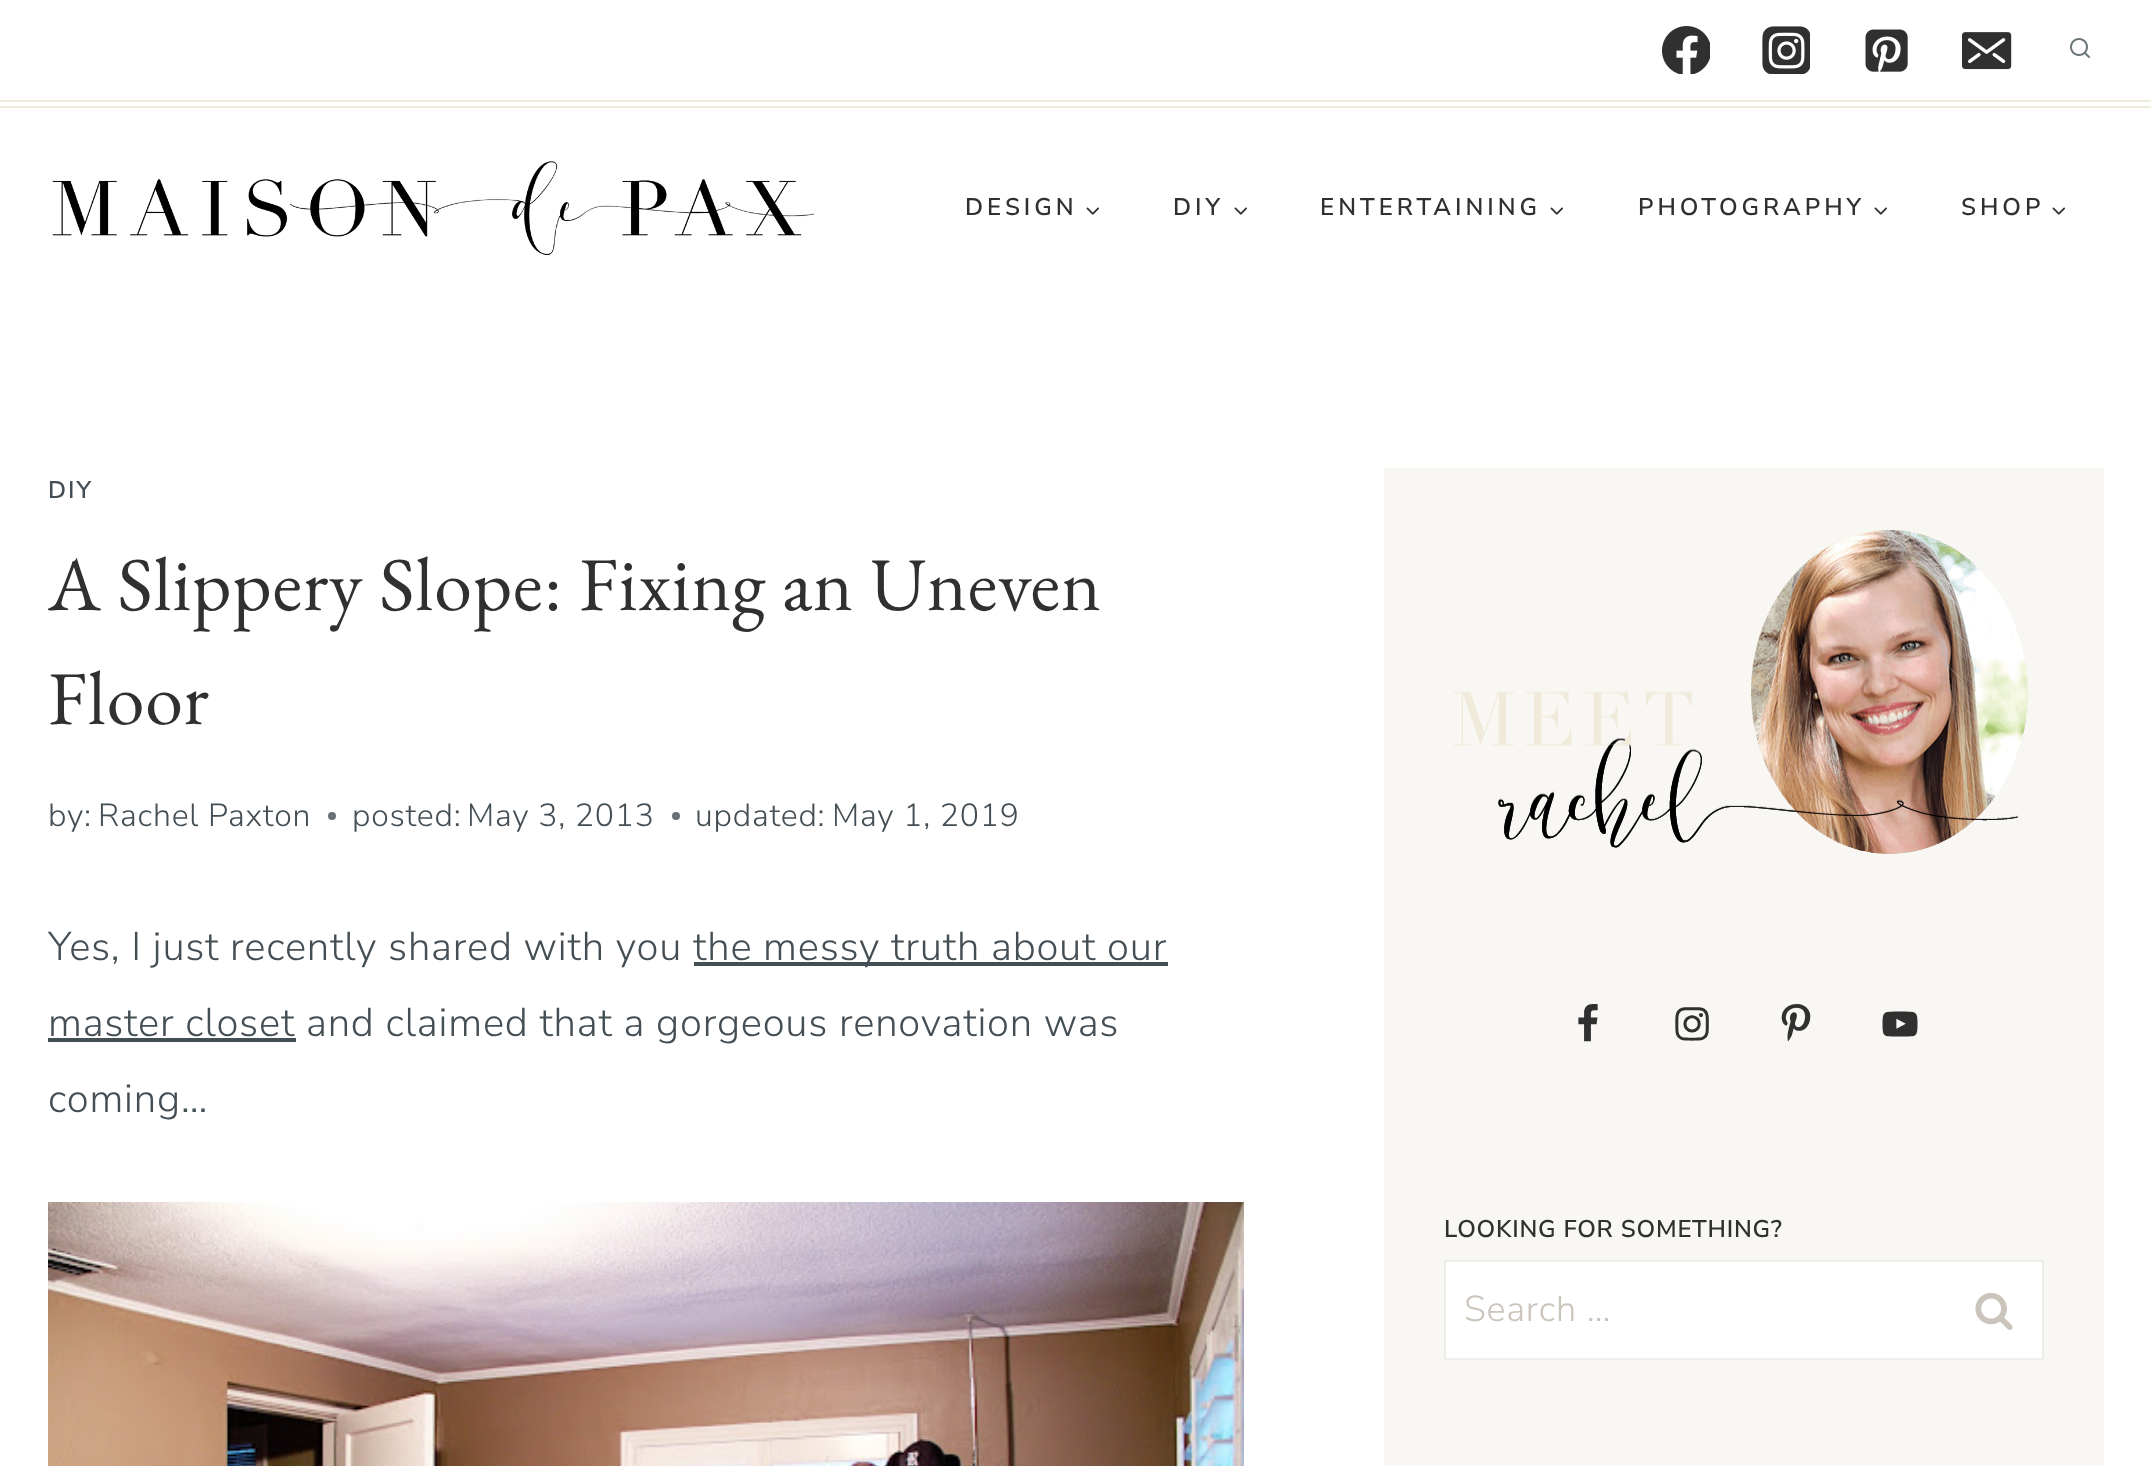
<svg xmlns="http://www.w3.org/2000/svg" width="2151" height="1466">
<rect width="100%" height="100%" fill="#fff"/>
<rect y="100" width="2151" height="2" fill="#efe9d9"/>
<rect y="106" width="2151" height="2" fill="#efe9d9"/>
<image x="1662" y="26" width="48" height="48" href="media/1.png"/>
<image x="1762" y="26" width="48" height="48" href="media/2.png"/>
<image x="1865" y="29" width="43" height="43" href="media/3.png"/>
<image x="1962" y="32" width="50" height="38" href="media/4.png"/>
<image x="2070" y="38" width="20" height="20" href="media/5.png"/>
<image x="52" y="161" width="762" height="94" href="media/6.png"/>
<text x="965" y="215" style="font-family:Nunito Sans;font-size:24px;font-weight:600;letter-spacing:4px;fill:#303030">DESIGN</text>
<image x="1086" y="207" width="14" height="8" href="media/7.png"/>
<text x="1173" y="215" style="font-family:Nunito Sans;font-size:24px;font-weight:600;letter-spacing:4px;fill:#303030">DIY</text>
<image x="1234" y="207" width="14" height="8" href="media/7.png"/>
<text x="1320" y="215" style="font-family:Nunito Sans;font-size:24px;font-weight:600;letter-spacing:4px;fill:#303030">ENTERTAINING</text>
<image x="1550" y="207" width="14" height="8" href="media/7.png"/>
<text x="1638" y="215" style="font-family:Nunito Sans;font-size:24px;font-weight:600;letter-spacing:4px;fill:#303030">PHOTOGRAPHY</text>
<image x="1874" y="207" width="14" height="8" href="media/7.png"/>
<text x="1961" y="215" style="font-family:Nunito Sans;font-size:24px;font-weight:600;letter-spacing:4px;fill:#303030">SHOP</text>
<image x="2052" y="207" width="14" height="8" href="media/7.png"/>
<text x="48" y="498" style="font-family:Nunito Sans;font-size:24px;font-weight:600;letter-spacing:2px;fill:#444e55">DIY</text>
<text x="48" y="610" style="font-family:EB Garamond;font-size:76px;letter-spacing:0.8px;fill:#303030">A Slippery Slope: Fixing an Uneven</text>
<text x="48" y="724" style="font-family:EB Garamond;font-size:76px;letter-spacing:0.8px;fill:#303030">Floor</text>
<text x="48" y="826" style="font-family:Nunito Sans;font-size:32px;font-weight:300;letter-spacing:0.8px;fill:#444e55">by:</text>
<text x="98" y="826" style="font-family:Nunito Sans;font-size:32px;font-weight:300;letter-spacing:0.8px;fill:#444e55">Rachel Paxton</text>
<circle cx="332" cy="816" r="4" fill="#697177"/>
<text x="352" y="826" style="font-family:Nunito Sans;font-size:32px;font-weight:300;letter-spacing:0.8px;fill:#444e55">posted:</text>
<text x="467" y="826" style="font-family:Nunito Sans;font-size:32px;font-weight:300;letter-spacing:0.8px;fill:#444e55">May 3, 2013</text>
<circle cx="676" cy="816" r="4" fill="#697177"/>
<text x="695" y="826" style="font-family:Nunito Sans;font-size:32px;font-weight:300;letter-spacing:0.8px;fill:#444e55">updated:</text>
<text x="832" y="826" style="font-family:Nunito Sans;font-size:32px;font-weight:300;letter-spacing:0.8px;fill:#444e55">May 1, 2019</text>
<text x="48" y="960" style="font-family:Nunito Sans;font-size:40px;font-weight:300;letter-spacing:0.8px;fill:#444e55">Yes, I just recently shared with you</text>
<rect x="694" y="962" width="474" height="4" fill="#444e55"/>
<text x="693" y="960" style="font-family:Nunito Sans;font-size:40px;font-weight:300;letter-spacing:0.8px;fill:#444e55">the messy truth about our</text>
<rect x="48" y="1038" width="248" height="4" fill="#444e55"/>
<text x="48" y="1036" style="font-family:Nunito Sans;font-size:40px;font-weight:300;letter-spacing:0.8px;fill:#444e55">master closet and claimed that a gorgeous renovation was</text>
<text x="48" y="1112" style="font-family:Nunito Sans;font-size:40px;font-weight:300;letter-spacing:0.8px;fill:#444e55">coming…</text>
<image x="48" y="1202" width="1196" height="264" href="media/8.png"/>
<rect x="1384" y="468" width="720" height="998" fill="#f8f7f3"/>
<image x="1453" y="530" width="575" height="324" href="media/9.png"/>
<image x="1578" y="1004" width="20" height="38" href="media/10.png"/>
<image x="1675" y="1007" width="34" height="34" href="media/11.png"/>
<image x="1781" y="1004" width="30" height="38" href="media/12.png"/>
<image x="1882" y="1011" width="36" height="26" href="media/13.png"/>
<text x="1444" y="1237" style="font-family:Nunito Sans;font-size:24px;font-weight:600;letter-spacing:0.8px;fill:#303030">LOOKING FOR SOMETHING?</text>
<rect x="1445" y="1261" width="598" height="98" fill="#fff" stroke="#eee" stroke-width="2"/>
<text x="1464" y="1321" style="font-family:Nunito Sans;font-size:36px;font-weight:300;letter-spacing:0.75px;fill:#cac4bb">Search …</text>
<image x="1975" y="1292" width="38" height="38" href="media/14.png"/>
</svg>
